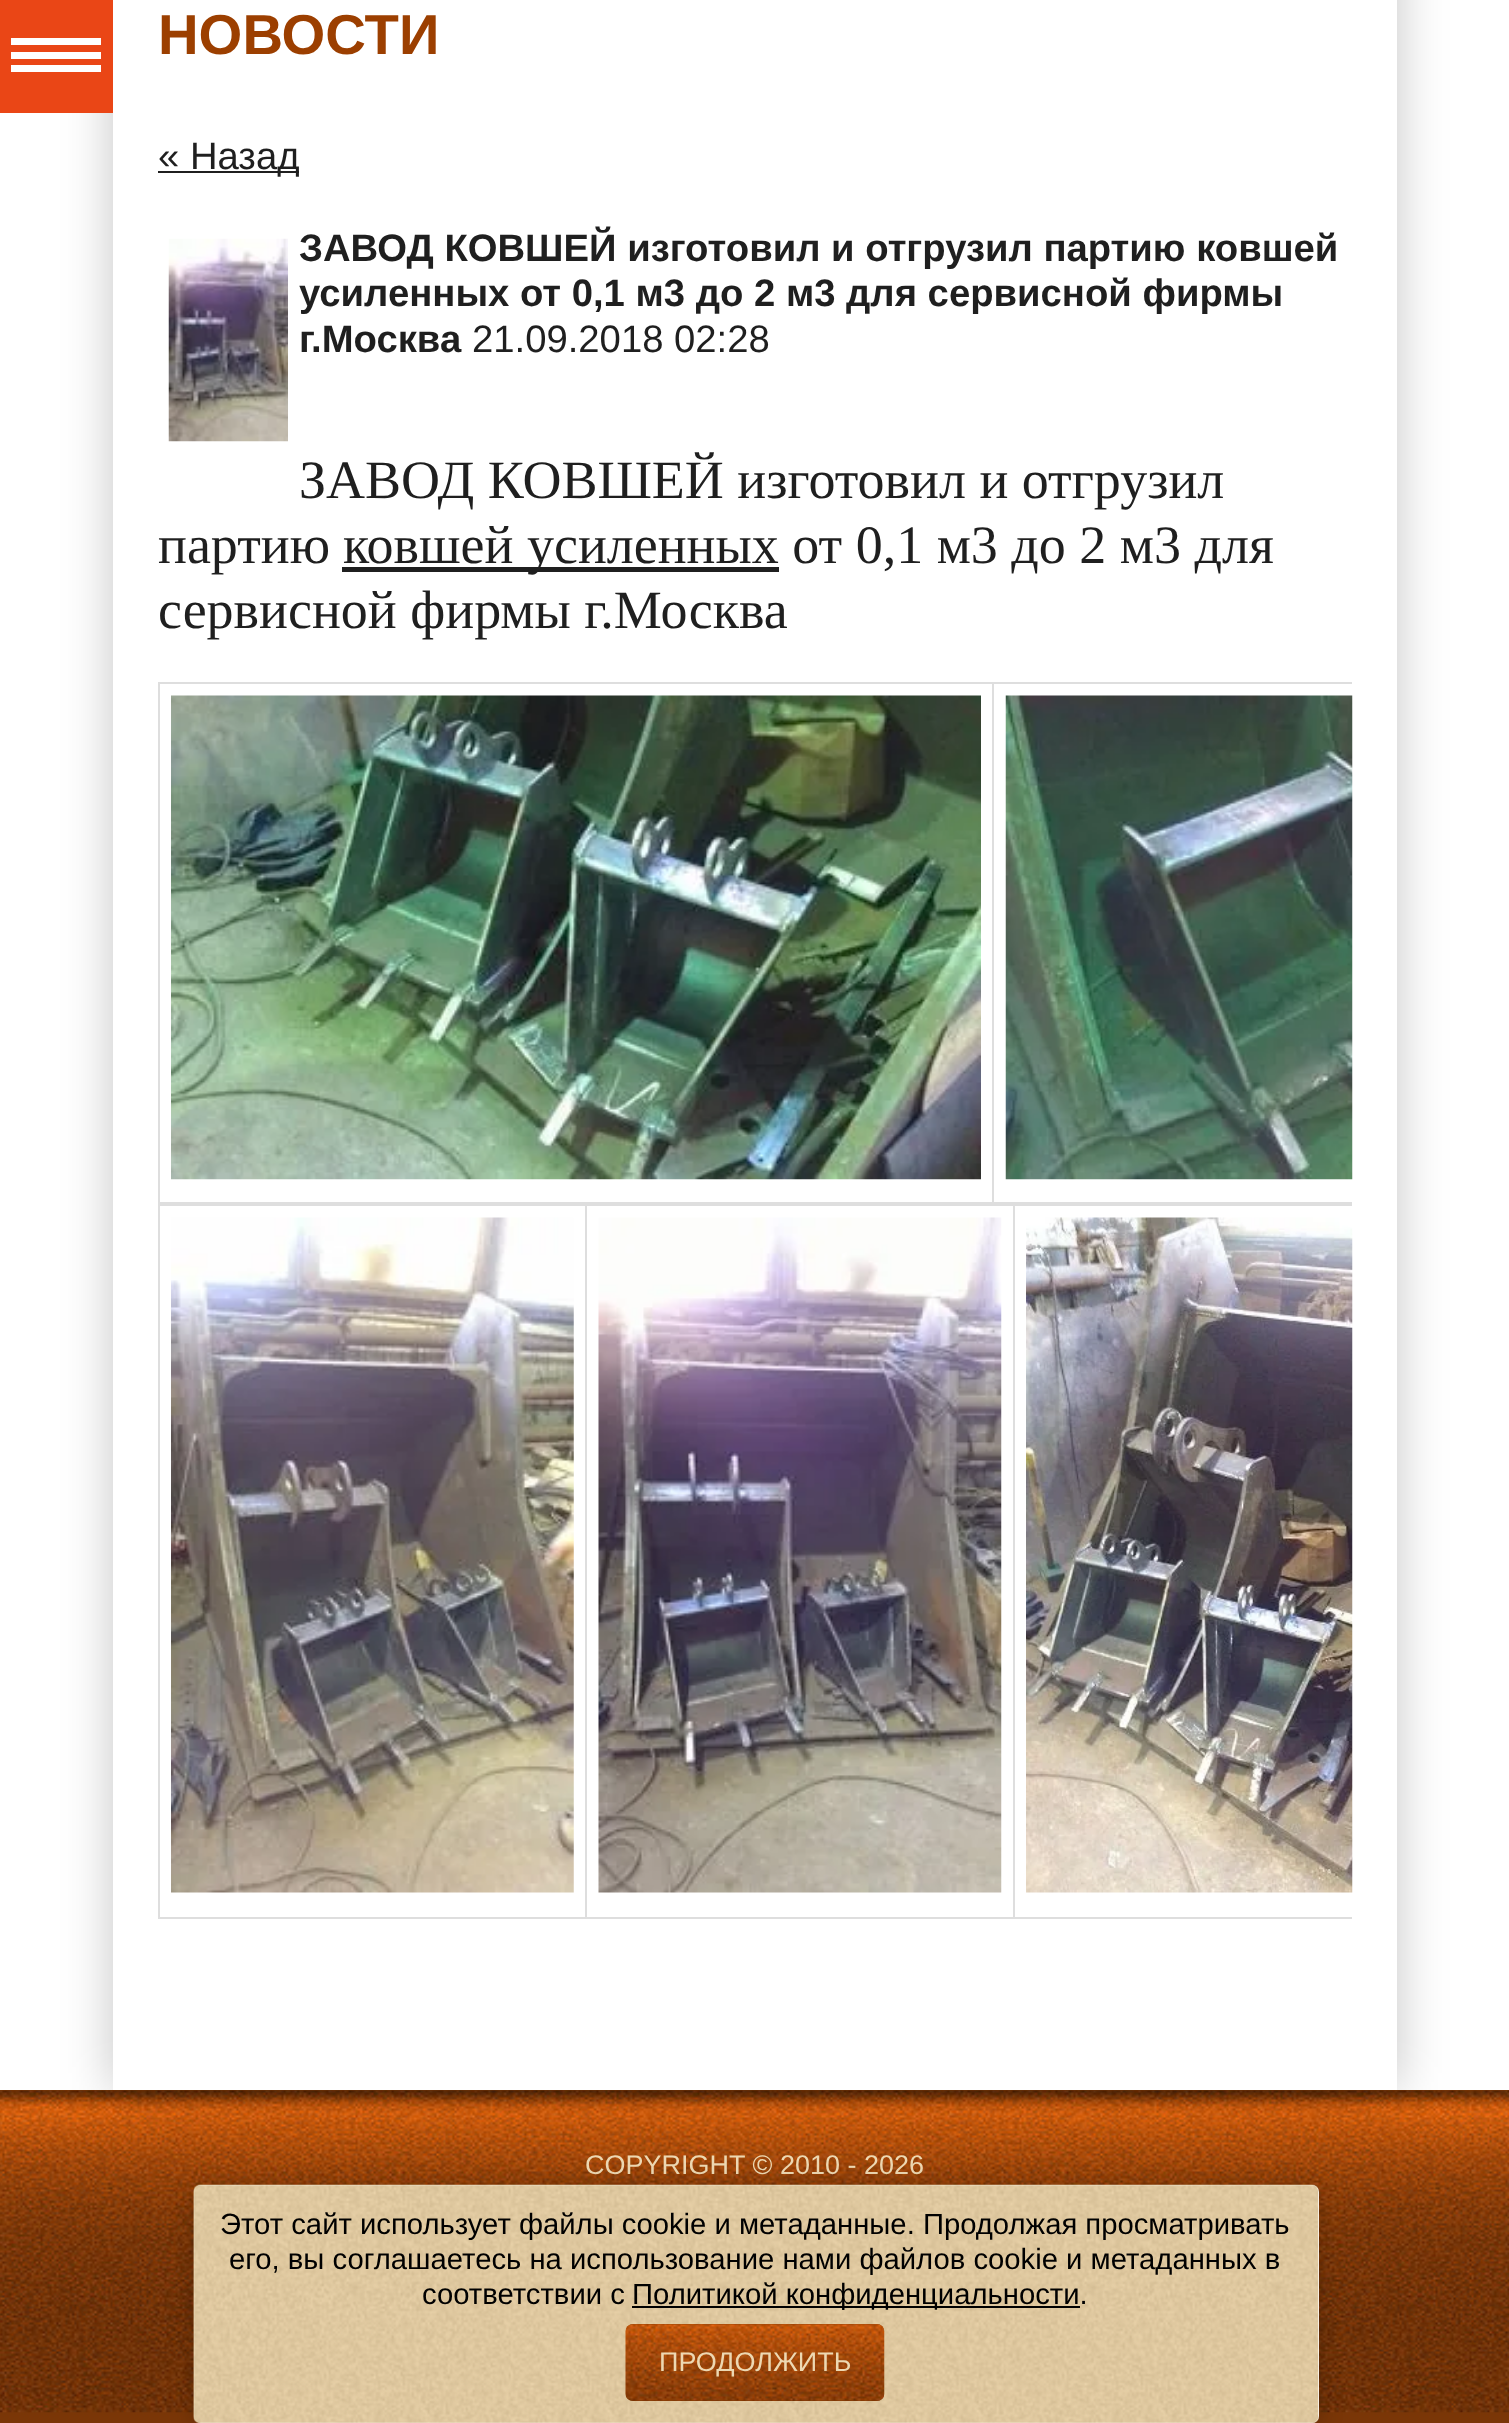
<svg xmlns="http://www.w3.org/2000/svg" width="1509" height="2423">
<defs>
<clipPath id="clip1"><path d="M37 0h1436v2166h-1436zm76-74h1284v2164h-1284z" clip-rule="evenodd"/></clipPath>
</defs>
<rect width="100%" height="100%" fill="#fff"/>
<rect y="2090" width="1509" height="333" fill="#7a3607"/>
<image x="0" y="2090" width="1509" height="323" href="media/7.png"/>
<g clip-path="url(#clip1)">
<rect x="113" y="-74" width="1284" height="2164" fill="#0000003b" filter="blur(25px)"/>
</g>
<rect width="113" height="113" fill="#ea4616"/>
<rect x="11" y="38" width="90" height="7" fill="#fff"/>
<rect x="11" y="52" width="90" height="7" fill="#fff"/>
<rect x="11" y="65" width="90" height="7" fill="#fff"/>
<text x="158" y="54" style="font-family:Liberation Sans;font-size:56.25px;font-weight:bold;fill:#9c3f00">НОВОСТИ</text>
<rect x="158" y="171" width="141" height="2" fill="#1f1f1f"/>
<text x="158" y="169" style="font-family:Liberation Sans;font-size:38.25px;fill:#1f1f1f">« Назад</text>
<image x="168" y="238" width="120" height="204" href="media/1.png"/>
<text x="299" y="261" style="font-family:Liberation Sans;font-size:38.25px;font-weight:bold;fill:#1f1f1f">ЗАВОД КОВШЕЙ изготовил и отгрузил партию ковшей</text>
<text x="299" y="306" style="font-family:Liberation Sans;font-size:38.25px;font-weight:bold;fill:#1f1f1f">усиленных от 0,1 м3 до 2 м3 для сервисной фирмы</text>
<text x="299" y="352" style="font-family:Liberation Sans;font-size:38.25px;font-weight:bold;fill:#1f1f1f">г.Москва</text>
<text x="472" y="352" style="font-family:Liberation Sans;font-size:38.25px;fill:#1f1f1f">21.09.2018 02:28</text>
<text x="299" y="498" style="font-family:Liberation Serif;font-size:54px;fill:#1f1f1f">ЗАВОД КОВШЕЙ изготовил и отгрузил</text>
<text x="158" y="563" style="font-family:Liberation Serif;font-size:54px;fill:#1f1f1f">партию</text>
<rect x="342" y="567" width="437" height="5" fill="#1f1f1f"/>
<text x="343" y="563" style="font-family:Liberation Serif;font-size:54px;fill:#1f1f1f">ковшей усиленных от 0,1 м3 до 2 м3 для</text>
<text x="158" y="628" style="font-family:Liberation Serif;font-size:54px;fill:#1f1f1f">сервисной фирмы г.Москва</text>
<rect x="992" y="682" width="360" height="2" fill="#dedede"/>
<rect x="992" y="1202" width="360" height="2" fill="#dedede"/>
<rect x="992" y="682" width="2" height="522" fill="#dedede"/>
<rect x="158" y="682" width="837" height="2" fill="#dedede"/>
<rect x="158" y="1202" width="837" height="2" fill="#dedede"/>
<rect x="158" y="682" width="2" height="522" fill="#dedede"/>
<image x="171" y="695" width="810" height="485" href="media/2.png"/>
<image x="1005" y="695" width="348" height="485" href="media/3.png"/>
<rect x="1013" y="1204" width="339" height="2" fill="#dedede"/>
<rect x="1013" y="1917" width="339" height="2" fill="#dedede"/>
<rect x="1013" y="1204" width="2" height="715" fill="#dedede"/>
<rect x="585" y="1204" width="430" height="2" fill="#dedede"/>
<rect x="585" y="1917" width="430" height="2" fill="#dedede"/>
<rect x="585" y="1204" width="2" height="715" fill="#dedede"/>
<rect x="158" y="1204" width="429" height="2" fill="#dedede"/>
<rect x="158" y="1917" width="429" height="2" fill="#dedede"/>
<rect x="158" y="1204" width="2" height="715" fill="#dedede"/>
<image x="171" y="1217" width="403" height="676" href="media/4.png"/>
<image x="598" y="1217" width="404" height="676" href="media/5.png"/>
<image x="1026" y="1217" width="327" height="676" href="media/6.png"/>
<text x="585" y="2174" style="font-family:Liberation Sans;font-size:27px;fill:#edd8b2">COPYRIGHT © 2010 - 2026</text>
<rect x="194" y="2187" width="1125" height="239" rx="7" fill="#0000003b" filter="blur(11px)"/>
<rect x="194" y="2185" width="1125" height="238" rx="7" fill="#fff"/>
<image x="193" y="2184" width="1126" height="239" href="media/8.png"/>
<text x="220" y="2234" style="font-family:Liberation Sans;font-size:29.25px;fill:#000">Этот сайт использует файлы cookie и метаданные. Продолжая просматривать</text>
<text x="229" y="2269" style="font-family:Liberation Sans;font-size:29.25px;fill:#000">его, вы соглашаетесь на использование нами файлов cookie и метаданных в</text>
<text x="422" y="2304" style="font-family:Liberation Sans;font-size:29.25px;fill:#000">соответствии с</text>
<rect x="632" y="2306" width="448" height="2" fill="#000"/>
<text x="632" y="2304" style="font-family:Liberation Sans;font-size:29.25px;fill:#000">Политикой конфиденциальности.</text>
<rect x="626" y="2324" width="258" height="77" rx="7" fill="#7a3607"/>
<image x="625" y="2324" width="260" height="77" href="media/9.png"/>
<text x="659" y="2371" style="font-family:Liberation Sans;font-size:27px;fill:#edd8b2">ПРОДОЛЖИТЬ</text>
</svg>
